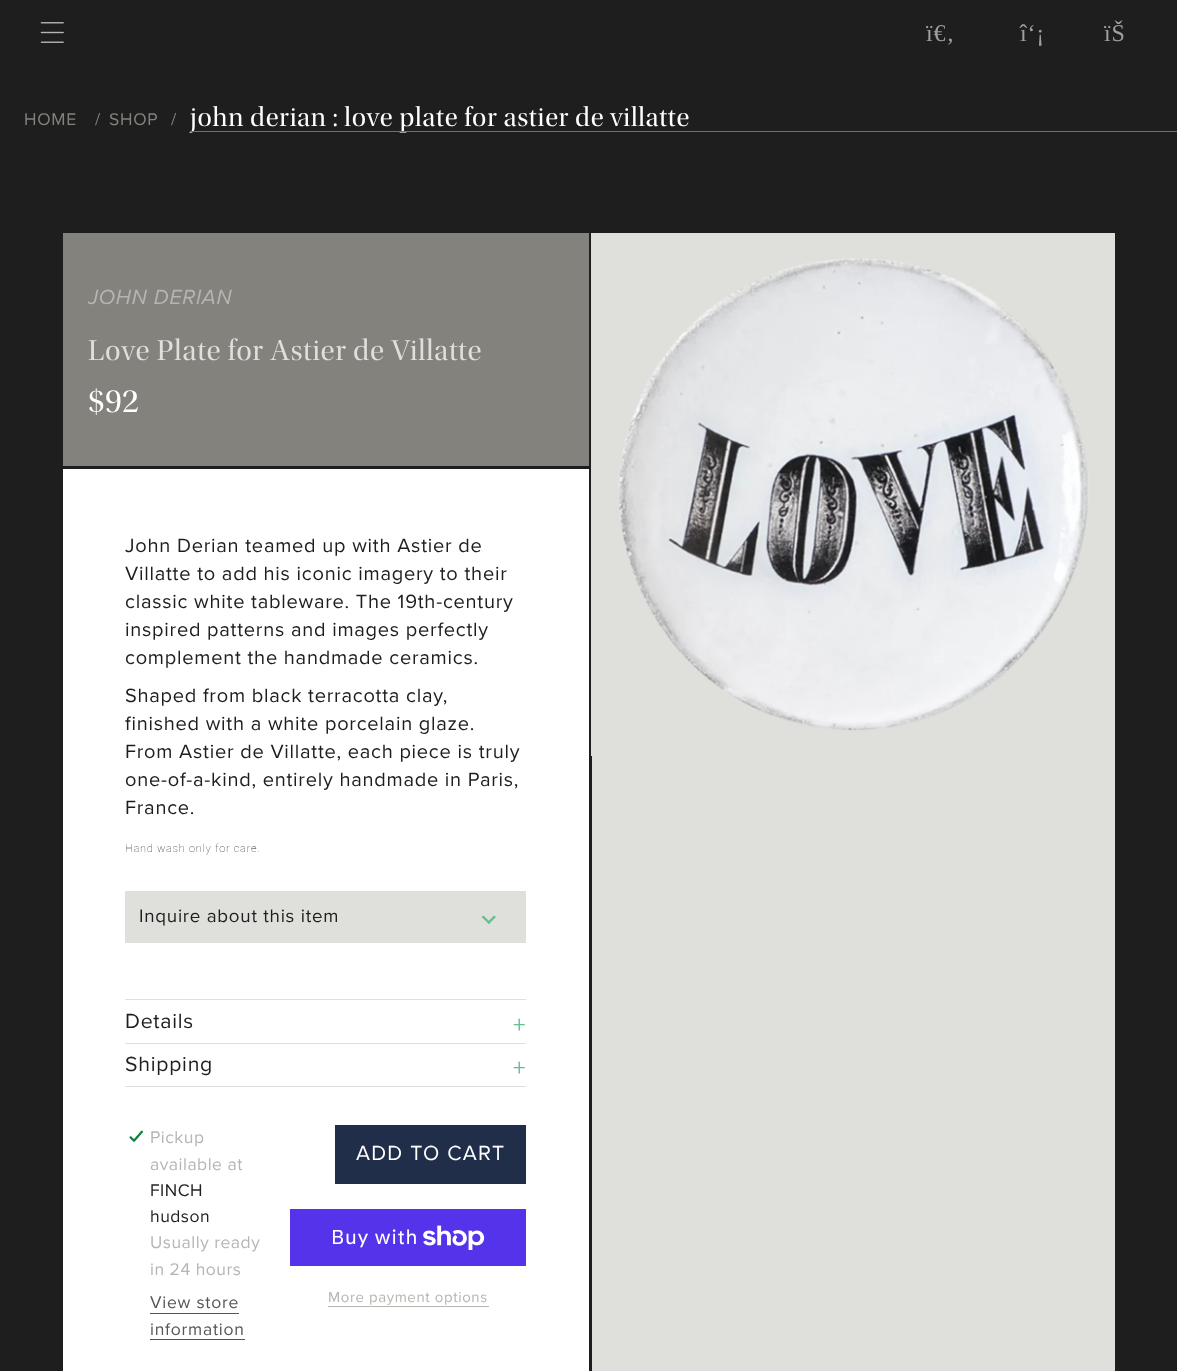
<svg xmlns="http://www.w3.org/2000/svg" width="1177" height="1371">
<rect width="100%" height="100%" fill="#1e1e1e"/>
<image x="40" y="22" width="24" height="21" href="media/1.png"/>
<text x="926" y="41" style="font-family:Liberation Serif;font-size:24px;letter-spacing:0.75px;fill:#9f9f9d">ï€‚</text>
<text x="1020" y="41" style="font-family:Liberation Serif;font-size:24px;letter-spacing:0.75px;fill:#9f9f9d">î‘¡</text>
<text x="1104" y="41" style="font-family:Liberation Serif;font-size:24px;letter-spacing:0.75px;fill:#9f9f9d">ïŠ</text>
<text x="24" y="125" style="font-family:Proxima Nova;font-size:17.5px;letter-spacing:0.75px;fill:#84827d">HOME</text>
<text x="95" y="125" style="font-family:Proxima Nova;font-size:17.5px;letter-spacing:0.75px;fill:#84827d">/</text>
<text x="109" y="125" style="font-family:Proxima Nova;font-size:17.5px;letter-spacing:0.75px;fill:#84827d">SHOP</text>
<text x="171" y="125" style="font-family:Proxima Nova;font-size:17.5px;letter-spacing:0.75px;fill:#84827d">/</text>
<text x="190" y="126" style="font-family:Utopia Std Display;font-size:27.5px;letter-spacing:0.75px;fill:#fff">john derian : love plate for astier de villatte</text>
<rect x="190" y="131" width="987" height="1" fill="#707070"/>
<rect x="63" y="469" width="526" height="902" fill="#fff"/>
<rect x="63" y="233" width="526" height="233" fill="#84827d"/>
<text x="88" y="304" style="font-family:Proxima Nova;font-size:21.25px;font-style:italic;letter-spacing:0.75px;fill:#b5b5b1">JOHN DERIAN</text>
<text x="88" y="360" style="font-family:Utopia Std Display;font-size:30px;letter-spacing:0.75px;fill:#dfdfdb">Love Plate for Astier de Villatte</text>
<text x="88" y="412" style="font-family:Utopia Std Display;font-size:34px;fill:#fff">$92</text>
<text x="125" y="552" style="font-family:Proxima Nova;font-size:20px;letter-spacing:0.75px;fill:#1e1e1e">John Derian teamed up with Astier de</text>
<text x="125" y="580" style="font-family:Proxima Nova;font-size:20px;letter-spacing:0.75px;fill:#1e1e1e">Villatte to add his iconic imagery to their</text>
<text x="125" y="608" style="font-family:Proxima Nova;font-size:20px;letter-spacing:0.75px;fill:#1e1e1e">classic white tableware. The 19th-century</text>
<text x="125" y="636" style="font-family:Proxima Nova;font-size:20px;letter-spacing:0.75px;fill:#1e1e1e">inspired patterns and images perfectly</text>
<text x="125" y="664" style="font-family:Proxima Nova;font-size:20px;letter-spacing:0.75px;fill:#1e1e1e">complement the handmade ceramics.</text>
<text x="125" y="702" style="font-family:Proxima Nova;font-size:20px;letter-spacing:0.75px;fill:#1e1e1e">Shaped from black terracotta clay,</text>
<text x="125" y="730" style="font-family:Proxima Nova;font-size:20px;letter-spacing:0.75px;fill:#1e1e1e">finished with a white porcelain glaze.</text>
<text x="125" y="758" style="font-family:Proxima Nova;font-size:20px;letter-spacing:0.75px;fill:#1e1e1e">From Astier de Villatte, each piece is truly</text>
<text x="125" y="786" style="font-family:Proxima Nova;font-size:20px;letter-spacing:0.75px;fill:#1e1e1e">one-of-a-kind, entirely handmade in Paris,</text>
<text x="125" y="814" style="font-family:Proxima Nova;font-size:20px;letter-spacing:0.75px;fill:#1e1e1e">France.</text>
<text x="125" y="852" style="font-family:Roboto;font-size:11px;font-weight:100;letter-spacing:0.75px;fill:#1e1e1e">Hand wash only for care.</text>
<rect x="125" y="891" width="401" height="52" fill="#dfdfdb"/>
<text x="139" y="922" style="font-family:Proxima Nova;font-size:18.75px;letter-spacing:0.75px;fill:#1e1e1e">Inquire about this item</text>
<path d="M494 915.5l2 1.5l-7 7l-2-1.5z" fill="#6abf91"/>
<path d="M483.5 915.5l7 7l-1.5 1.5l-7.5-7z" fill="#6abf91"/>
<rect x="125" y="999" width="401" height="1" fill="#dfdfdb"/>
<rect x="125" y="1043" width="401" height="1" fill="#dfdfdb"/>
<text x="125" y="1028" style="font-family:Proxima Nova;font-size:21.25px;letter-spacing:0.75px;fill:#1e1e1e">Details</text>
<text x="513" y="1033" style="font-family:Proxima Nova;font-size:25px;letter-spacing:0.75px;fill:#6abf91">+</text>
<rect x="125" y="1086" width="401" height="1" fill="#dfdfdb"/>
<text x="125" y="1071" style="font-family:Proxima Nova;font-size:21.25px;letter-spacing:0.75px;fill:#1e1e1e">Shipping</text>
<text x="513" y="1076" style="font-family:Proxima Nova;font-size:25px;letter-spacing:0.75px;fill:#6abf91">+</text>
<image x="129" y="1130" width="15" height="13" href="media/2.png"/>
<text x="150" y="1143" style="font-family:Proxima Nova;font-size:17.5px;letter-spacing:0.5px;fill:#b5b5b1">Pickup</text>
<text x="150" y="1170" style="font-family:Proxima Nova;font-size:17.5px;letter-spacing:0.5px;fill:#b5b5b1">available at</text>
<text x="150" y="1196" style="font-family:Proxima Nova;font-size:17.5px;letter-spacing:0.5px;fill:#1e1e1e">FINCH</text>
<text x="150" y="1222" style="font-family:Proxima Nova;font-size:17.5px;letter-spacing:0.5px;fill:#1e1e1e">hudson</text>
<text x="150" y="1248" style="font-family:Proxima Nova;font-size:17.5px;letter-spacing:0.5px;fill:#b5b5b1">Usually ready</text>
<text x="150" y="1275" style="font-family:Proxima Nova;font-size:17.5px;letter-spacing:0.5px;fill:#b5b5b1">in 24 hours</text>
<text x="150" y="1308" style="font-family:Proxima Nova;font-size:17.5px;letter-spacing:0.75px;fill:#565656">View store</text>
<rect x="150" y="1313" width="89" height="1" fill="#565656"/>
<text x="150" y="1335" style="font-family:Proxima Nova;font-size:17.5px;letter-spacing:0.75px;fill:#565656">information</text>
<rect x="150" y="1339" width="95" height="1" fill="#565656"/>
<rect x="335" y="1125" width="191" height="59" fill="#202e49"/>
<text x="356" y="1160" style="font-family:Proxima Nova;font-size:21.25px;letter-spacing:1.25px;fill:#fff">ADD TO CART</text>
<rect x="290" y="1209" width="236" height="57" fill="#5433eb"/>
<text x="331" y="1244" style="font-family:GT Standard;font-size:20px;letter-spacing:0.75px;fill:#fff">Buy with</text>
<image x="423" y="1225" width="62" height="25" href="media/3.png"/>
<text x="328" y="1302" style="font-family:Proxima Nova;font-size:15px;letter-spacing:0.6px;fill:#b5b5b1">More payment options</text>
<rect x="328" y="1306" width="161" height="1" fill="#b5b5b1"/>
<rect x="592" y="756" width="523" height="615" fill="#dfdfdb"/>
<rect x="591" y="233" width="524" height="523" fill="#dfdfdb"/>
<image x="618" y="258" width="471" height="473" href="media/4.png"/>
</svg>
